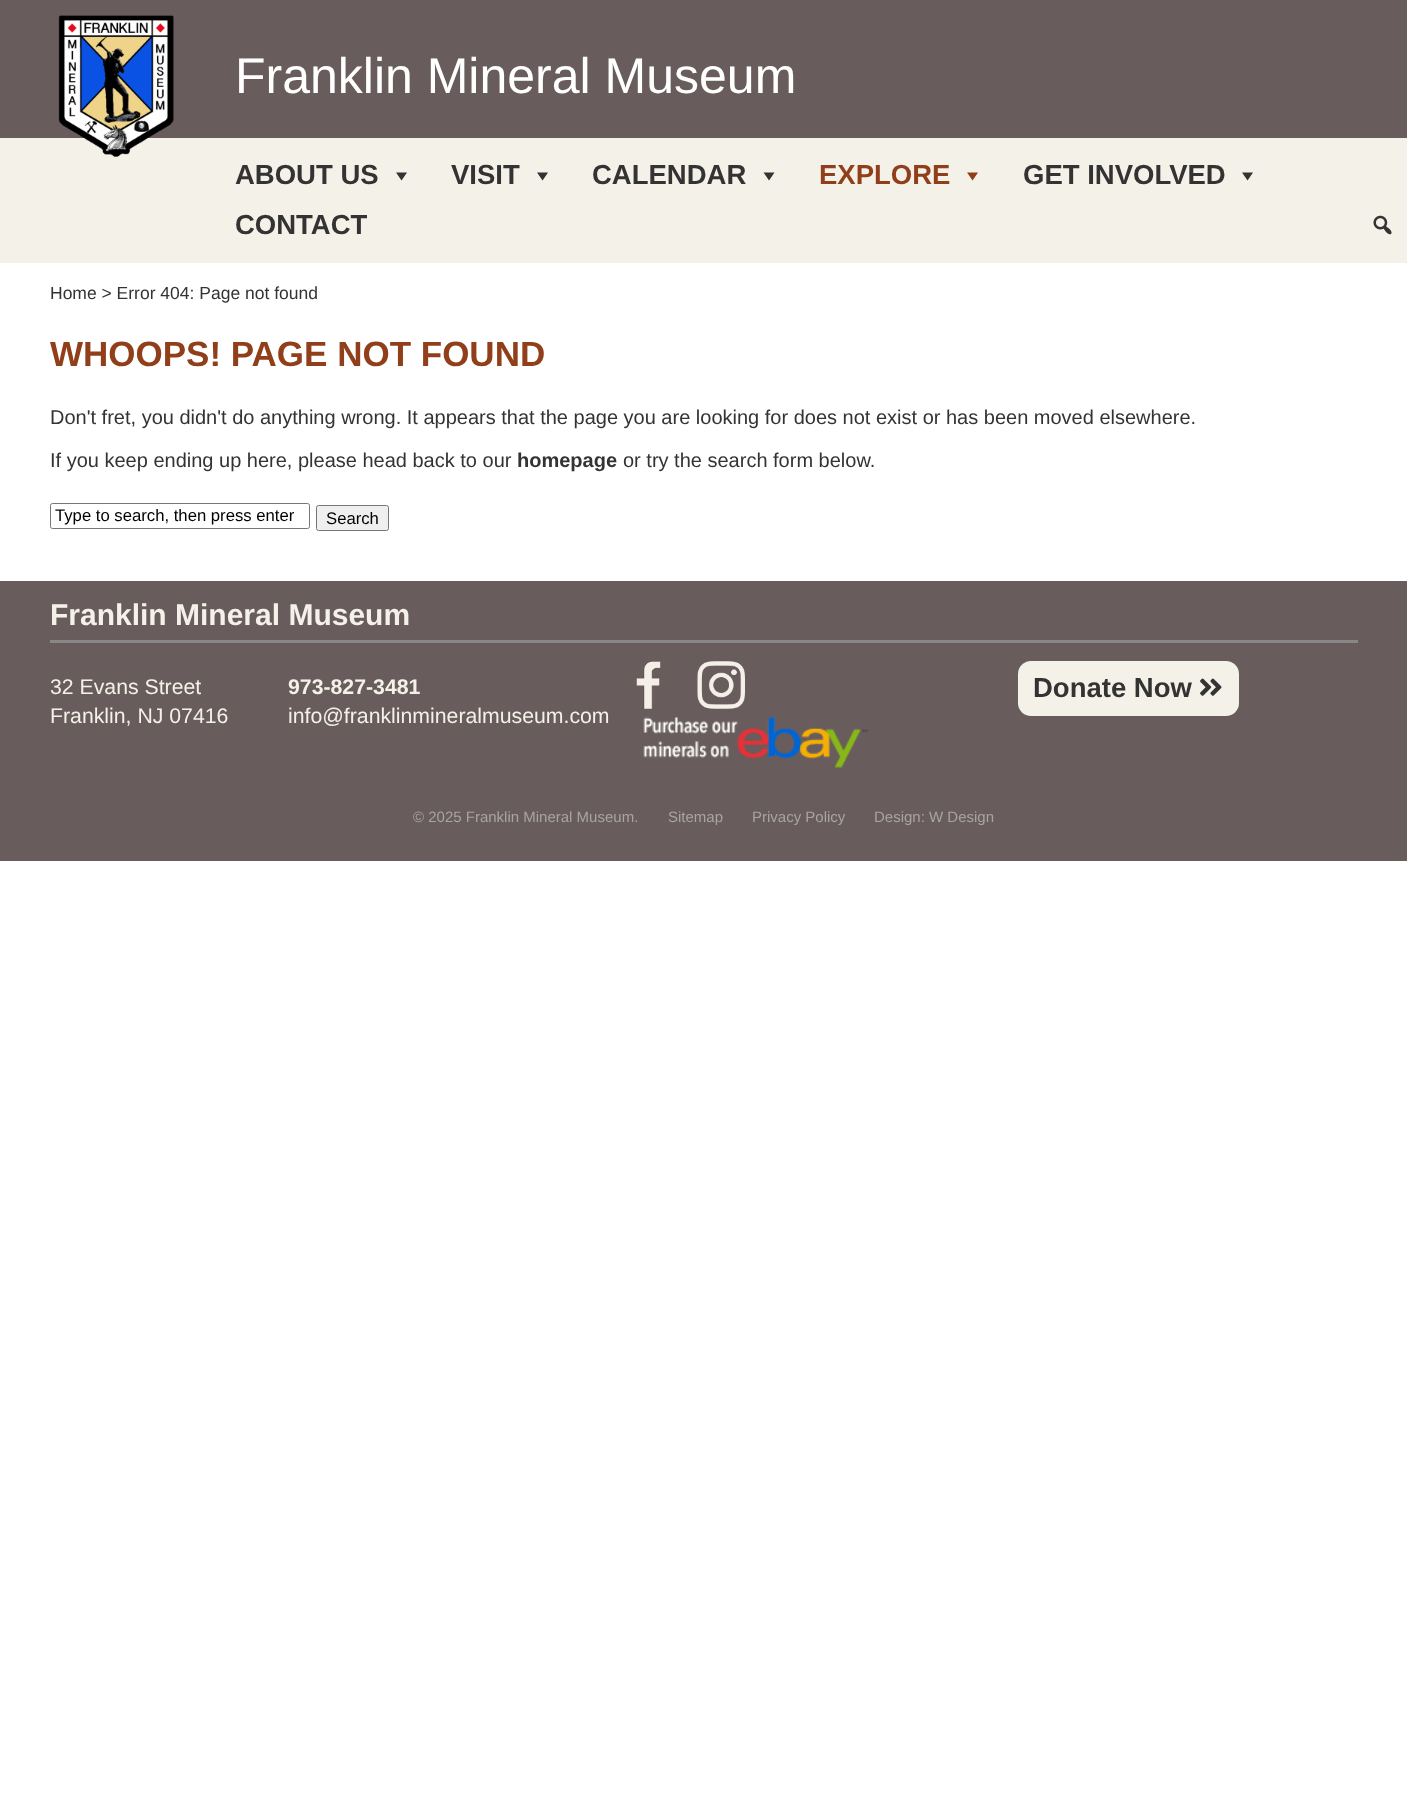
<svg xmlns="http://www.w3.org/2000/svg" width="1407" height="1809">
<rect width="100%" height="100%" fill="#fff"/>
<rect width="1407" height="138" fill="#685c5c"/>
<rect y="138" width="1407" height="125" fill="#f4f1e9"/>
<image x="58" y="15" width="116" height="142" href="media/1.png"/>
<text x="235" y="93" style="font-family:Liberation Sans;font-size:50px;fill:#fff">Franklin Mineral Museum</text>
<text x="235" y="184" style="font-family:Liberation Sans;font-size:27.5px;font-weight:bold;fill:#333">ABOUT US</text>
<path d="M407 172.5l-5.5 8l-5.5-8z" fill="#333"/>
<text x="451" y="184" style="font-family:Liberation Sans;font-size:27.5px;font-weight:bold;fill:#333">VISIT</text>
<path d="M548 172.5l-5.5 8l-5.5-8z" fill="#333"/>
<text x="592" y="184" style="font-family:Liberation Sans;font-size:27.5px;font-weight:bold;fill:#333">CALENDAR</text>
<path d="M774.5 172.5l-5.5 8l-5.5-8z" fill="#333"/>
<text x="819" y="184" style="font-family:Liberation Sans;font-size:27.5px;font-weight:bold;fill:#903f1a">EXPLORE</text>
<path d="M978 172.5l-5.5 8l-5.5-8z" fill="#903f1a"/>
<text x="1023" y="184" style="font-family:Liberation Sans;font-size:27.5px;font-weight:bold;fill:#333">GET INVOLVED</text>
<path d="M1253 172.5l-5.5 8l-5.5-8z" fill="#333"/>
<text x="235" y="234" style="font-family:Liberation Sans;font-size:27.5px;font-weight:bold;fill:#333">CONTACT</text>
<image x="1373" y="215" width="19" height="20" href="media/2.png"/>
<text x="50" y="299" style="font-family:Liberation Sans;font-size:17.5px;fill:#333">Home &gt; Error 404: Page not found</text>
<text x="50" y="366" style="font-family:Liberation Sans;font-size:35px;font-weight:bold;fill:#903f1a">WHOOPS! PAGE NOT FOUND</text>
<text x="50" y="424" style="font-family:Liberation Sans;font-size:20px;fill:#333">Don't fret, you didn't do anything wrong. It appears that the page you are looking for does not exist or has been moved elsewhere.</text>
<text x="50" y="467" style="font-family:Liberation Sans;font-size:20px;fill:#333">If you keep ending up here, please head back to our</text>
<text x="517" y="467" style="font-family:Liberation Sans;font-size:20px;font-weight:bold;fill:#333">homepage</text>
<text x="623" y="467" style="font-family:Liberation Sans;font-size:20px;fill:#333">or try the search form below.</text>
<rect x="50.5" y="503.5" width="259" height="25" rx="2" fill="none" stroke="#767676"/>
<text x="55" y="521" style="font-family:Liberation Sans;font-size:16.7px;fill:#000">Type to search, then press enter</text>
<rect x="316.5" y="505.5" width="72" height="25" rx="2" fill="#efefef" stroke="#767676"/>
<text x="326" y="524" style="font-family:Liberation Sans;font-size:16.7px;fill:#000">Search</text>
<rect y="581" width="1407" height="280" fill="#685c5c"/>
<rect x="50" y="640" width="1308" height="3" fill="#878787"/>
<text x="50" y="625" style="font-family:Liberation Sans;font-size:30px;font-weight:bold;fill:#f4f1e9">Franklin Mineral Museum</text>
<text x="50" y="694" style="font-family:Liberation Sans;font-size:21.25px;fill:#f4f1e9">32 Evans Street</text>
<text x="50" y="723" style="font-family:Liberation Sans;font-size:21.25px;fill:#f4f1e9">Franklin, NJ 07416</text>
<text x="288" y="694" style="font-family:Liberation Sans;font-size:21.25px;font-weight:bold;fill:#f4f1e9">973-827-3481</text>
<text x="288" y="723" style="font-family:Liberation Sans;font-size:21.25px;fill:#f4f1e9">info@franklinmineralmuseum.com</text>
<image x="636" y="661" width="25" height="48" href="media/3.png"/>
<image x="697" y="661" width="48" height="48" href="media/4.png"/>
<image x="643" y="717" width="225" height="51" href="media/5.png"/>
<rect x="1018" y="661" width="221" height="55" rx="13" fill="#f4f1e9"/>
<text x="1033" y="697" style="font-family:Liberation Sans;font-size:27.5px;font-weight:bold;fill:#333">Donate Now</text>
<image x="1200" y="678" width="22" height="18" href="media/6.png"/>
<text x="413" y="822" style="font-family:Liberation Sans;font-size:15px;fill:#a7a4a2">© 2025 Franklin Mineral Museum.</text>
<text x="668" y="822" style="font-family:Liberation Sans;font-size:15px;fill:#a7a4a2">Sitemap</text>
<text x="752" y="822" style="font-family:Liberation Sans;font-size:15px;fill:#a7a4a2">Privacy Policy</text>
<text x="874" y="822" style="font-family:Liberation Sans;font-size:15px;fill:#a7a4a2">Design: W Design</text>
</svg>
